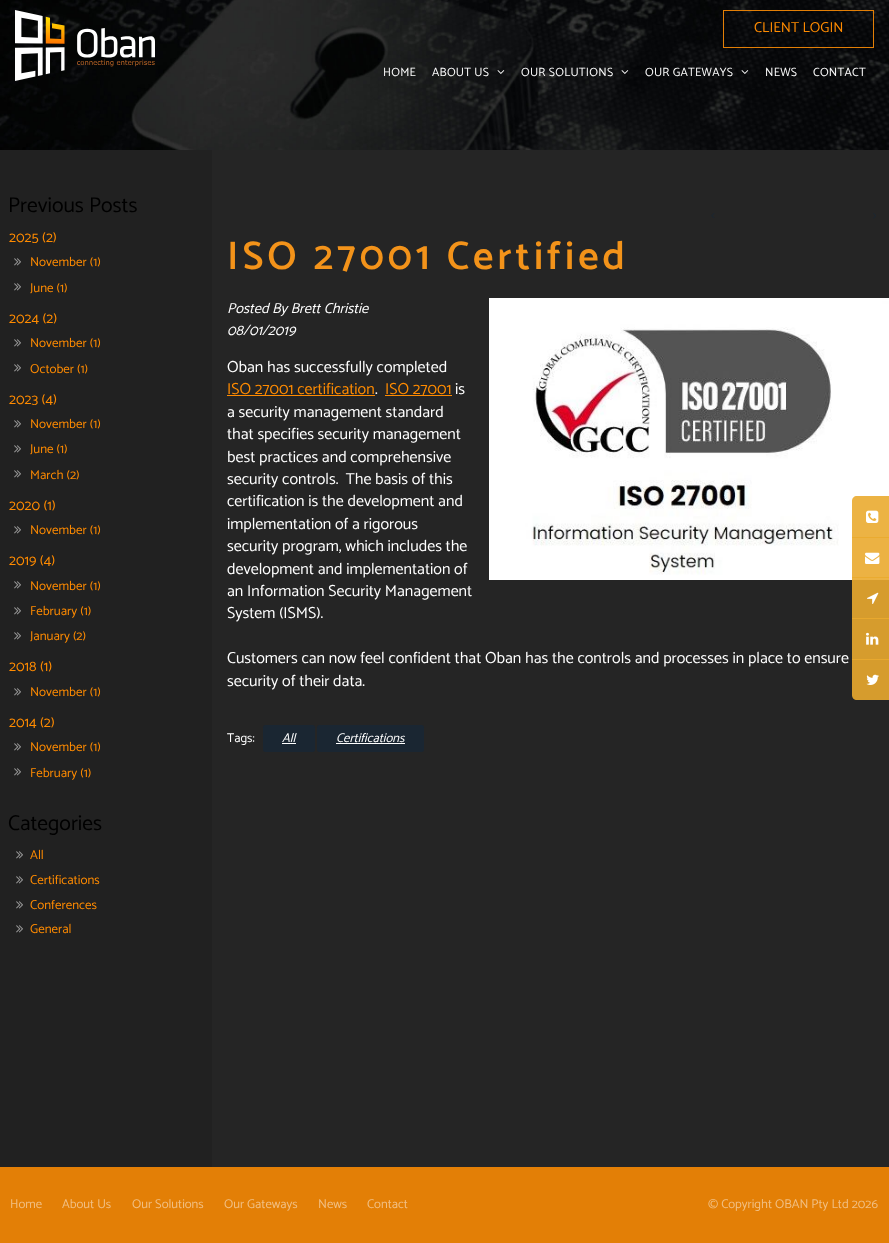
<svg xmlns="http://www.w3.org/2000/svg" width="889" height="1243">
<rect width="100%" height="100%" fill="#252525"/>
<image x="0" y="0" width="889" height="150" href="media/1.png"/>
<image x="15" y="10" width="140" height="71" href="media/2.png"/>
<rect x="723.5" y="10.5" width="150" height="37" fill="none" stroke="#e37f06"/>
<text x="754" y="32" style="font-family:Catamaran;font-size:14.5px;fill:#ff8b00">CLIENT LOGIN</text>
<text x="383" y="76" style="font-family:Catamaran;font-size:12px;letter-spacing:0.25px;fill:#fff">HOME</text>
<text x="432" y="76" style="font-family:Catamaran;font-size:12px;letter-spacing:0.25px;fill:#fff">ABOUT US</text>
<image x="497" y="70" width="8" height="4" href="media/3.png"/>
<text x="521" y="76" style="font-family:Catamaran;font-size:12px;letter-spacing:0.25px;fill:#fff">OUR SOLUTIONS</text>
<image x="621" y="70" width="8" height="4" href="media/4.png"/>
<text x="645" y="76" style="font-family:Catamaran;font-size:12px;letter-spacing:0.25px;fill:#fff">OUR GATEWAYS</text>
<image x="741" y="70" width="8" height="4" href="media/5.png"/>
<text x="765" y="76" style="font-family:Catamaran;font-size:12px;letter-spacing:0.25px;fill:#fff">NEWS</text>
<text x="813" y="76" style="font-family:Catamaran;font-size:12px;letter-spacing:0.25px;fill:#fff">CONTACT</text>
<rect y="150" width="212" height="1017" fill="#212121"/>
<text x="8" y="212" style="font-family:Catamaran;font-size:21.5px;fill:#000">Previous Posts</text>
<text x="9" y="242" style="font-family:Catamaran;font-size:14.5px;fill:#ff8b00">2025 (2)</text>
<image x="14" y="258" width="7" height="8" href="media/6.png"/>
<text x="30" y="266" style="font-family:Catamaran;font-size:13px;fill:#ff8b00">November (1)</text>
<image x="14" y="283" width="7" height="8" href="media/6.png"/>
<text x="30" y="292" style="font-family:Catamaran;font-size:13px;fill:#ff8b00">June (1)</text>
<text x="9" y="323" style="font-family:Catamaran;font-size:14.5px;fill:#ff8b00">2024 (2)</text>
<image x="14" y="339" width="7" height="8" href="media/6.png"/>
<text x="30" y="347" style="font-family:Catamaran;font-size:13px;fill:#ff8b00">November (1)</text>
<image x="14" y="364" width="7" height="8" href="media/6.png"/>
<text x="30" y="373" style="font-family:Catamaran;font-size:13px;fill:#ff8b00">October (1)</text>
<text x="9" y="404" style="font-family:Catamaran;font-size:14.5px;fill:#ff8b00">2023 (4)</text>
<image x="14" y="420" width="7" height="8" href="media/6.png"/>
<text x="30" y="428" style="font-family:Catamaran;font-size:13px;fill:#ff8b00">November (1)</text>
<image x="14" y="445" width="7" height="8" href="media/6.png"/>
<text x="30" y="453" style="font-family:Catamaran;font-size:13px;fill:#ff8b00">June (1)</text>
<image x="14" y="470" width="7" height="8" href="media/6.png"/>
<text x="30" y="479" style="font-family:Catamaran;font-size:13px;fill:#ff8b00">March (2)</text>
<text x="9" y="510" style="font-family:Catamaran;font-size:14.5px;fill:#ff8b00">2020 (1)</text>
<image x="14" y="526" width="7" height="8" href="media/6.png"/>
<text x="30" y="534" style="font-family:Catamaran;font-size:13px;fill:#ff8b00">November (1)</text>
<text x="9" y="565" style="font-family:Catamaran;font-size:14.5px;fill:#ff8b00">2019 (4)</text>
<image x="14" y="581" width="7" height="8" href="media/6.png"/>
<text x="30" y="590" style="font-family:Catamaran;font-size:13px;fill:#ff8b00">November (1)</text>
<image x="14" y="607" width="7" height="8" href="media/6.png"/>
<text x="30" y="615" style="font-family:Catamaran;font-size:13px;fill:#ff8b00">February (1)</text>
<image x="14" y="632" width="7" height="8" href="media/6.png"/>
<text x="30" y="640" style="font-family:Catamaran;font-size:13px;fill:#ff8b00">January (2)</text>
<text x="9" y="671" style="font-family:Catamaran;font-size:14.5px;fill:#ff8b00">2018 (1)</text>
<image x="14" y="688" width="7" height="8" href="media/6.png"/>
<text x="30" y="696" style="font-family:Catamaran;font-size:13px;fill:#ff8b00">November (1)</text>
<text x="9" y="727" style="font-family:Catamaran;font-size:14.5px;fill:#ff8b00">2014 (2)</text>
<image x="14" y="743" width="7" height="8" href="media/6.png"/>
<text x="30" y="751" style="font-family:Catamaran;font-size:13px;fill:#ff8b00">November (1)</text>
<image x="14" y="768" width="7" height="8" href="media/6.png"/>
<text x="30" y="777" style="font-family:Catamaran;font-size:13px;fill:#ff8b00">February (1)</text>
<text x="8" y="830" style="font-family:Catamaran;font-size:21.5px;fill:#000">Categories</text>
<image x="16" y="851" width="7" height="8" href="media/6.png"/>
<text x="30" y="859" style="font-family:Catamaran;font-size:13px;fill:#ff8b00">All</text>
<image x="16" y="876" width="7" height="8" href="media/6.png"/>
<text x="30" y="884" style="font-family:Catamaran;font-size:13px;fill:#ff8b00">Certifications</text>
<image x="16" y="901" width="7" height="8" href="media/6.png"/>
<text x="30" y="909" style="font-family:Catamaran;font-size:13px;fill:#ff8b00">Conferences</text>
<image x="16" y="925" width="7" height="8" href="media/6.png"/>
<text x="30" y="933" style="font-family:Catamaran;font-size:13px;fill:#ff8b00">General</text>
<image x="711" y="213" width="4" height="5" href="media/7.png"/>
<image x="873" y="213" width="3" height="6" href="media/8.png"/>
<text x="227" y="269" style="font-family:Catamaran;font-size:40px;font-weight:600;letter-spacing:4px;fill:#f3931a">ISO 27001 Certified</text>
<text x="227" y="313" style="font-family:Catamaran;font-size:14.5px;font-style:italic;fill:#fff">Posted By Brett Christie</text>
<text x="227" y="335" style="font-family:Catamaran;font-size:14.5px;font-style:italic;fill:#fff">08/01/2019</text>
<image x="489" y="298" width="400" height="282" href="media/9.png"/>
<text x="227" y="372" style="font-family:Catamaran;font-size:16px;fill:#fff">Oban has successfully completed</text>
<rect x="227" y="395" width="148" height="1" fill="#ff8b00"/>
<text x="227" y="394" style="font-family:Catamaran;font-size:16px;fill:#ff8b00">ISO 27001 certification</text>
<text x="375" y="394" style="font-family:Catamaran;font-size:16px;fill:#fff">.</text>
<rect x="385" y="395" width="67" height="1" fill="#ff8b00"/>
<text x="385" y="394" style="font-family:Catamaran;font-size:16px;fill:#ff8b00">ISO 27001</text>
<text x="455" y="394" style="font-family:Catamaran;font-size:16px;fill:#fff">is</text>
<text x="227" y="417" style="font-family:Catamaran;font-size:16px;fill:#fff">a security management standard</text>
<text x="227" y="439" style="font-family:Catamaran;font-size:16px;fill:#fff">that specifies security management</text>
<text x="227" y="462" style="font-family:Catamaran;font-size:16px;fill:#fff">best practices and comprehensive</text>
<text x="227" y="484" style="font-family:Catamaran;font-size:16px;fill:#fff" xml:space="preserve">security controls.  The basis of this</text>
<text x="227" y="506" style="font-family:Catamaran;font-size:16px;fill:#fff">certification is the development and</text>
<text x="227" y="529" style="font-family:Catamaran;font-size:16px;fill:#fff">implementation of a rigorous</text>
<text x="227" y="551" style="font-family:Catamaran;font-size:16px;fill:#fff">security program, which includes the</text>
<text x="227" y="574" style="font-family:Catamaran;font-size:16px;fill:#fff">development and implementation of</text>
<text x="227" y="596" style="font-family:Catamaran;font-size:16px;fill:#fff">an Information Security Management</text>
<text x="227" y="618" style="font-family:Catamaran;font-size:16px;fill:#fff">System (ISMS).</text>
<text x="227" y="663" style="font-family:Catamaran;font-size:16px;fill:#fff">Customers can now feel confident that Oban has the controls and processes in place to ensure</text>
<text x="227" y="686" style="font-family:Catamaran;font-size:16px;fill:#fff">security of their data.</text>
<text x="227" y="742" style="font-family:Catamaran;font-size:12.75px;fill:#fff">Tags:</text>
<rect x="263" y="725" width="52" height="27" rx="2.5" fill="#1a2632"/>
<text x="282" y="742" style="font-family:Catamaran;font-size:12.75px;font-style:italic;fill:#fff">All</text>
<rect x="282" y="743" width="14" height="1" fill="#fff"/>
<rect x="317" y="725" width="107" height="27" rx="2.5" fill="#1a2632"/>
<text x="336" y="742" style="font-family:Catamaran;font-size:12.75px;font-style:italic;fill:#fff">Certifications</text>
<rect x="336" y="743" width="69" height="1" fill="#fff"/>
<rect y="1167" width="889" height="76" fill="#e37f06"/>
<text x="10" y="1208" style="font-family:Catamaran;font-size:12.75px;fill:#f1bf83">Home</text>
<text x="62" y="1208" style="font-family:Catamaran;font-size:12.75px;fill:#f1bf83">About Us</text>
<text x="132" y="1208" style="font-family:Catamaran;font-size:12.75px;fill:#f1bf83">Our Solutions</text>
<text x="224" y="1208" style="font-family:Catamaran;font-size:12.75px;fill:#f1bf83">Our Gateways</text>
<text x="318" y="1208" style="font-family:Catamaran;font-size:12.75px;fill:#f1bf83">News</text>
<text x="367" y="1208" style="font-family:Catamaran;font-size:12.75px;fill:#f1bf83">Contact</text>
<text x="708" y="1208" style="font-family:Catamaran;font-size:12.75px;fill:#f1bf83">© Copyright OBAN Pty Ltd 2026</text>
<path d="M857 496h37v42h-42v-37c0-3 2-5 5-5z" fill="#ecb344"/>
<image x="866" y="510" width="13" height="13" href="media/10.png"/>
<rect x="852" y="537" width="37" height="41" fill="#eaaa2fe6"/>
<image x="865" y="552" width="15" height="12" href="media/11.png"/>
<rect x="852" y="577" width="37" height="42" fill="#eaaa2fe6"/>
<image x="867" y="592" width="12" height="12" href="media/12.png"/>
<rect x="852" y="618" width="37" height="42" fill="#eaaa2fe6"/>
<image x="866" y="632" width="13" height="13" href="media/13.png"/>
<path d="M852 659h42v41h-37c-3 0-5-2-5-5z" fill="#eaaa2fe6"/>
<image x="866" y="674" width="13" height="11" href="media/14.png"/>
</svg>
